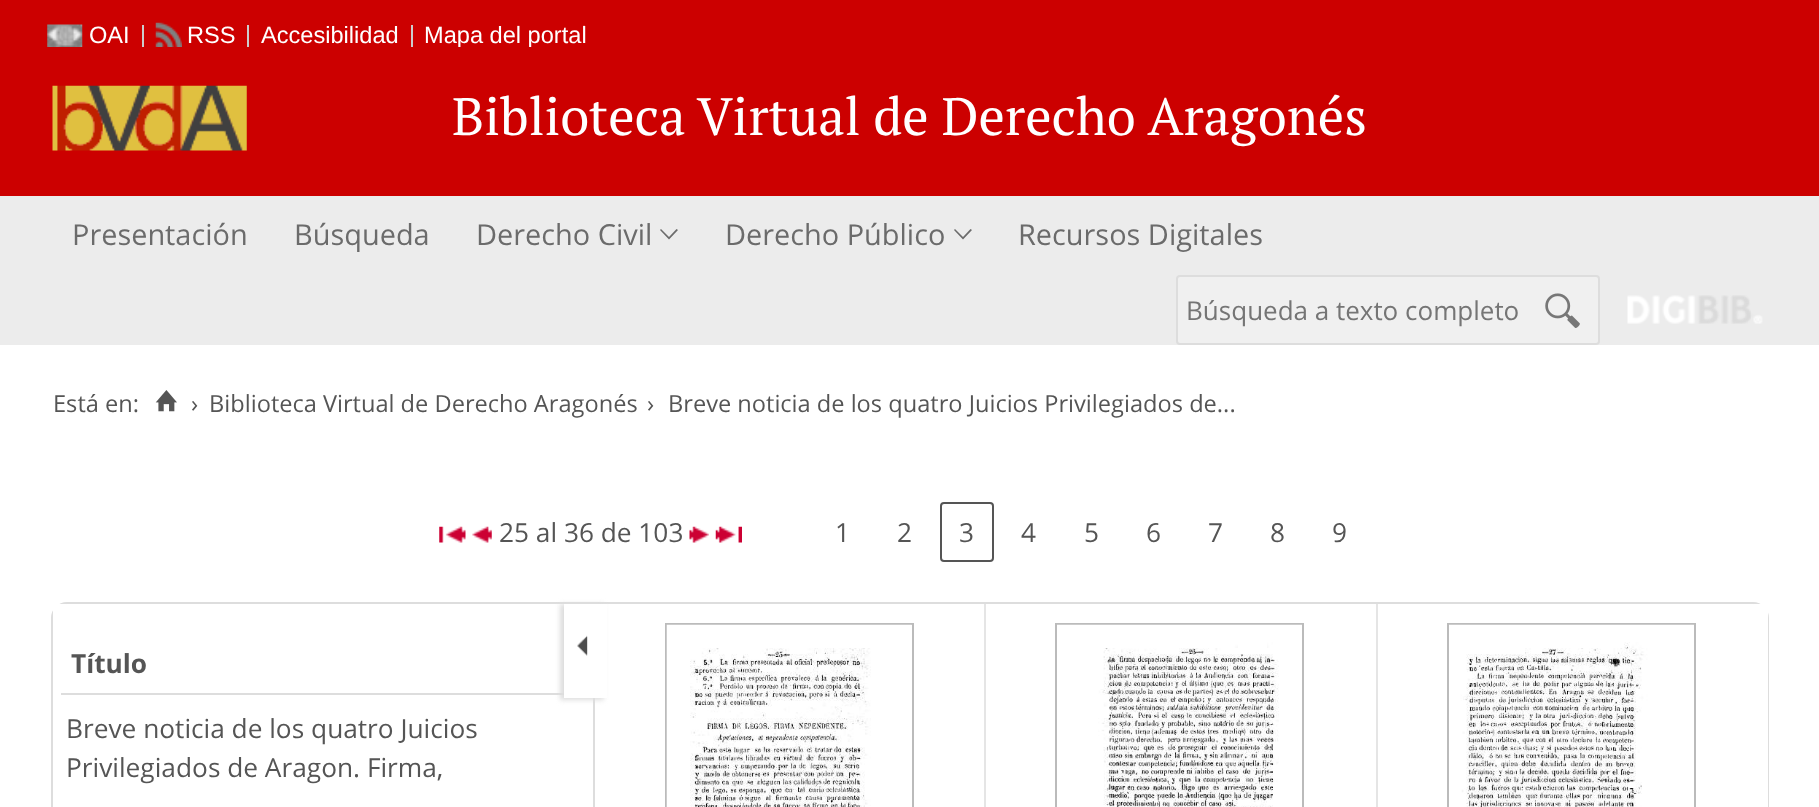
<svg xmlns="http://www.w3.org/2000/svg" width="1819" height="807">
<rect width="100%" height="100%" fill="#fff"/>
<rect width="1819" height="47" fill="#c00"/>
<image x="47" y="24" width="36" height="23" href="media/1.png"/>
<text x="89" y="43" style="font-family:Liberation Sans;font-size:23.6px;fill:#fff">OAI</text>
<rect x="142" y="25" width="2" height="22" fill="#ccc"/>
<image x="155" y="22" width="27" height="25" href="media/2.png"/>
<text x="187" y="43" style="font-family:Liberation Sans;font-size:23.6px;fill:#fff">RSS</text>
<rect x="247" y="25" width="2" height="22" fill="#ccc"/>
<text x="261" y="43" style="font-family:Liberation Sans;font-size:23.6px;fill:#fff">Accesibilidad</text>
<rect x="411" y="25" width="2" height="22" fill="#ccc"/>
<text x="424" y="43" style="font-family:Liberation Sans;font-size:23.6px;fill:#fff">Mapa del portal</text>
<rect y="47" width="1819" height="149" fill="#c00"/>
<image x="52" y="85" width="195" height="66" href="media/3.png"/>
<text x="452" y="135" style="font-family:PT Serif;font-size:52.5px;fill:#fff">Biblioteca Virtual de Derecho Aragonés</text>
<rect y="196" width="1819" height="149" fill="#ececec"/>
<text x="72" y="245" style="font-family:Open Sans;font-size:28.9px;fill:#6b6b6b">Presentación</text>
<text x="294" y="245" style="font-family:Open Sans;font-size:28.9px;fill:#6b6b6b">Búsqueda</text>
<text x="476" y="245" style="font-family:Open Sans;font-size:28.9px;fill:#6b6b6b">Derecho Civil</text>
<path d="M676.5 229l1.5 1l-9 9.5l-9-9.5l1-1l8 8z" fill="#6b6b6b"/>
<text x="725" y="245" style="font-family:Open Sans;font-size:28.9px;fill:#6b6b6b">Derecho Público</text>
<path d="M970.5 229l1.5 1l-9 9.5l-9-9.5l1-1l8 8z" fill="#6b6b6b"/>
<text x="1018" y="245" style="font-family:Open Sans;font-size:28.9px;fill:#6b6b6b">Recursos Digitales</text>
<rect x="1177" y="276" width="422" height="68" rx="3" fill="#f0f0f0" stroke="#ddd" stroke-width="2"/>
<text x="1186" y="320" style="font-family:Open Sans;font-size:26px;fill:#757575">Búsqueda a texto completo</text>
<image x="1545" y="293" width="35" height="35" href="media/4.png"/>
<image x="1627" y="295" width="136" height="29" href="media/5.png"/>
<text x="53" y="412" style="font-family:Open Sans;font-size:23.6px;fill:#555">Está en:</text>
<image x="155" y="390" width="22" height="22" href="media/6.png"/>
<text x="191" y="412" style="font-family:Open Sans;font-size:23.6px;fill:#555">›</text>
<text x="209" y="412" style="font-family:Open Sans;font-size:23.6px;fill:#555">Biblioteca Virtual de Derecho Aragonés</text>
<text x="647" y="412" style="font-family:Open Sans;font-size:23.6px;fill:#555">›</text>
<text x="668" y="412" style="font-family:Open Sans;font-size:23.6px;fill:#555">Breve noticia de los quatro Juicios Privilegiados de...</text>
<image x="439" y="526" width="27" height="17" href="media/7.png"/>
<image x="472" y="526" width="20" height="17" href="media/8.png"/>
<text x="499" y="542" style="font-family:Open Sans;font-size:26.25px;fill:#555">25 al 36 de 103</text>
<image x="689" y="526" width="20" height="17" href="media/9.png"/>
<image x="715" y="526" width="27" height="17" href="media/10.png"/>
<text x="835" y="542" style="font-family:Open Sans;font-size:26.25px;fill:#555">1</text>
<text x="897" y="542" style="font-family:Open Sans;font-size:26.25px;fill:#555">2</text>
<rect x="941" y="503" width="52" height="58" rx="3" fill="none" stroke="#555" stroke-width="2"/>
<text x="959" y="542" style="font-family:Open Sans;font-size:26.25px;fill:#555">3</text>
<text x="1021" y="542" style="font-family:Open Sans;font-size:26.25px;fill:#555">4</text>
<text x="1084" y="542" style="font-family:Open Sans;font-size:26.25px;fill:#555">5</text>
<text x="1146" y="542" style="font-family:Open Sans;font-size:26.25px;fill:#555">6</text>
<text x="1208" y="542" style="font-family:Open Sans;font-size:26.25px;fill:#555">7</text>
<text x="1270" y="542" style="font-family:Open Sans;font-size:26.25px;fill:#555">8</text>
<text x="1332" y="542" style="font-family:Open Sans;font-size:26.25px;fill:#555">9</text>
<rect x="52" y="603" width="1716" height="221" rx="15" fill="none" stroke="#ddd" stroke-width="2"/>
<rect x="53" y="604" width="13" height="13" fill="#fff"/>
<rect x="593" y="698" width="2" height="109" fill="#ddd"/>
<rect x="61" y="693" width="503" height="2" fill="#ddd"/>
<text x="71" y="673" style="font-family:Open Sans;font-size:26.25px;font-weight:bold;fill:#555">Título</text>
<text x="66" y="738" style="font-family:Open Sans;font-size:26.25px;fill:#555">Breve noticia de los quatro Juicios</text>
<text x="66" y="777" style="font-family:Open Sans;font-size:26.25px;fill:#555">Privilegiados de Aragon. Firma,</text>
<rect x="560" y="604" width="44" height="96" fill="#ddd" filter="blur(2.5px)"/>
<rect x="564" y="604" width="43" height="94" fill="#fff"/>
<image x="577" y="635" width="11" height="21" href="media/11.png"/>
<rect x="1754" y="604" width="14" height="203" fill="#fff"/>
<rect x="984" y="604" width="2" height="203" fill="#e5e5e5"/>
<rect x="666" y="624" width="247" height="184" fill="none" stroke="#bbb" stroke-width="2"/>
<image x="666" y="624" width="246" height="183" href="media/12.png"/>
<rect x="1376" y="604" width="2" height="203" fill="#e5e5e5"/>
<rect x="1056" y="624" width="247" height="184" fill="none" stroke="#bbb" stroke-width="2"/>
<image x="1057" y="624" width="245" height="183" href="media/13.png"/>
<rect x="1448" y="624" width="247" height="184" fill="none" stroke="#bbb" stroke-width="2"/>
<image x="1449" y="624" width="245" height="183" href="media/14.png"/>
</svg>
